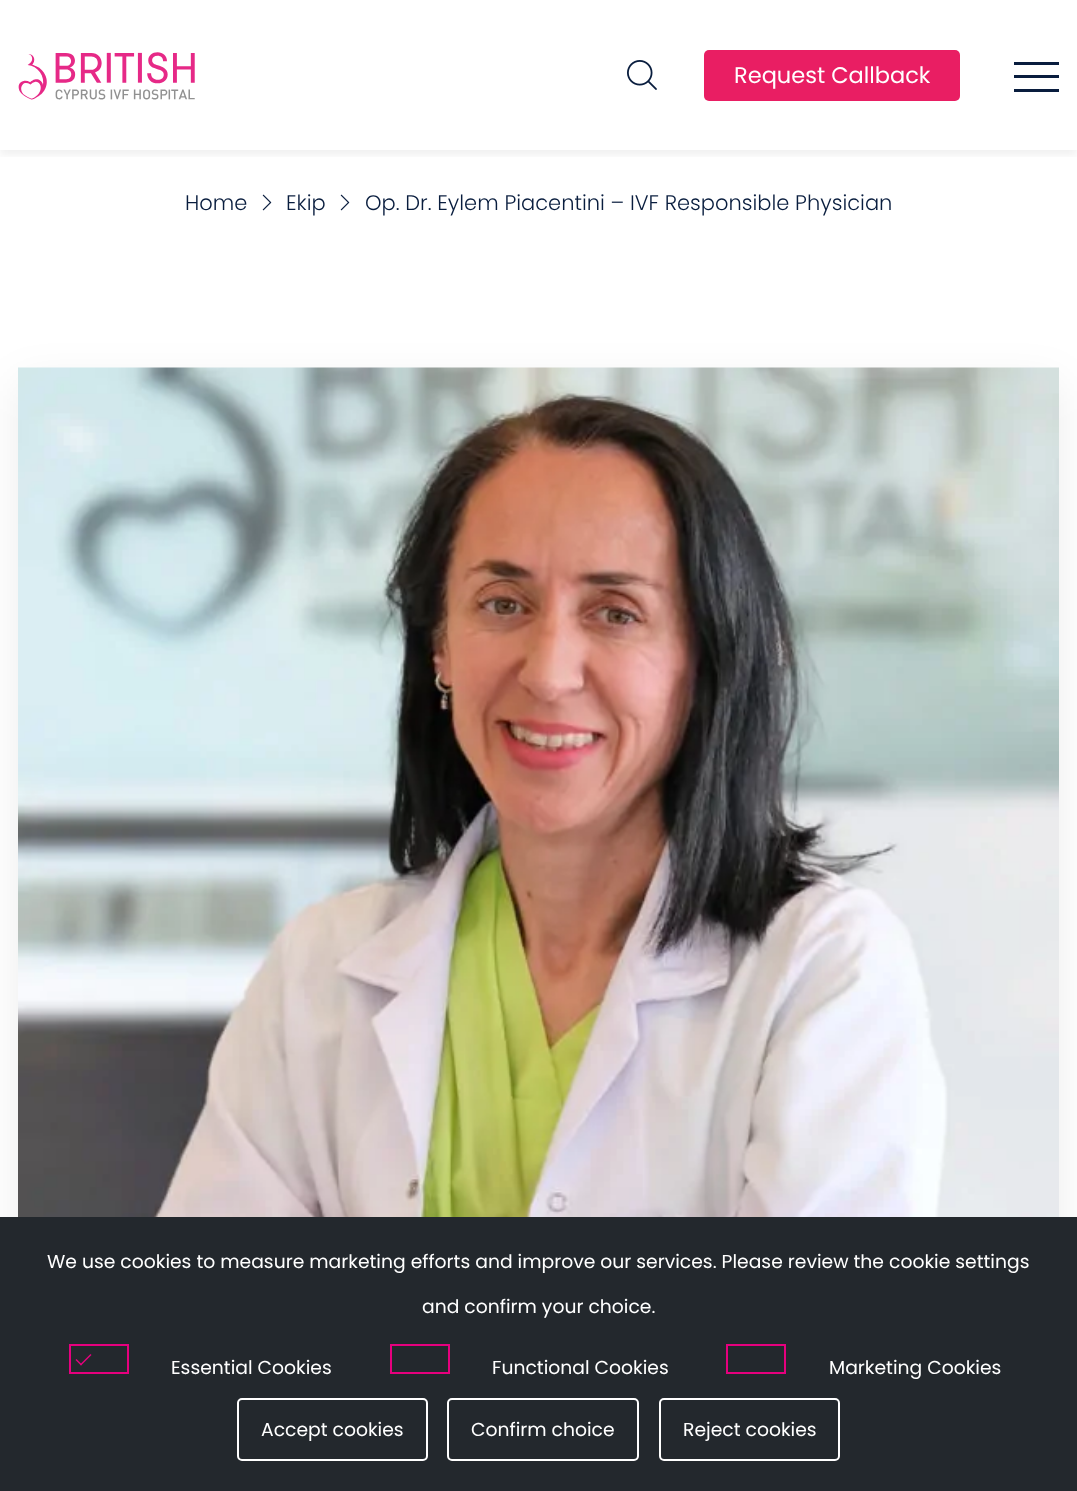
<svg xmlns="http://www.w3.org/2000/svg" width="1077" height="1491">
<defs>
<clipPath id="clip1"><rect x="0" y="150" width="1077" height="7"/></clipPath>
</defs>
<rect width="100%" height="100%" fill="#fff"/>
<g clip-path="url(#clip1)">
<rect y="5" width="1077" height="150" fill="#0000000f" filter="blur(4.5px)"/>
</g>
<image x="18" y="52" width="177" height="48" href="media/1.png"/>
<image x="627" y="60" width="30" height="30" href="media/2.png"/>
<rect x="704" y="50" width="256" height="51" rx="5" fill="#e91e63"/>
<text x="734" y="83" style="font-family:Poppins;font-size:22.5px;fill:#fff">Request Callback</text>
<rect x="1014" y="62" width="45" height="3" fill="#091d3e"/>
<rect x="1014" y="75" width="45" height="3" fill="#091d3e"/>
<rect x="1014" y="89" width="45" height="3" fill="#091d3e"/>
<text x="185" y="210" style="font-family:Poppins;font-size:21px;font-weight:300;fill:#091d3e">Home</text>
<image x="262" y="194" width="10" height="17" href="media/3.png"/>
<text x="286" y="210" style="font-family:Poppins;font-size:21px;font-weight:300;fill:#091d3e">Ekip</text>
<image x="340" y="194" width="10" height="17" href="media/3.png"/>
<text x="365" y="210" style="font-family:Poppins;font-size:21px;font-weight:300;fill:#091d3e">Op. Dr. Eylem Piacentini – IVF Responsible Physician</text>
<rect x="18" y="383" width="1041" height="1041" rx="8" fill="#00000012" filter="blur(22.5px)"/>
<image x="18" y="367" width="1041" height="850" href="media/4.png"/>
<rect y="1217" width="1077" height="274" fill="#23282d"/>
<text x="47" y="1268" style="font-family:Poppins;font-size:18.75px;fill:#fff">We use cookies to measure marketing efforts and improve our services. Please review the cookie settings</text>
<text x="422" y="1313" style="font-family:Poppins;font-size:18.75px;fill:#fff">and confirm your choice.</text>
<rect x="70" y="1345" width="58" height="28" fill="none" stroke="#e6007e" stroke-width="2"/>
<path d="M90.5 1354l1 1l-10.5 10.5l-1-1z" fill="#e6007e"/>
<path d="M76.5 1359l5.5 5.5l-1 1l-5.5-5.5z" fill="#e6007e"/>
<text x="171" y="1374" style="font-family:Poppins;font-size:18.75px;fill:#fff">Essential Cookies</text>
<rect x="391" y="1345" width="58" height="28" fill="none" stroke="#e6007e" stroke-width="2"/>
<text x="492" y="1374" style="font-family:Poppins;font-size:18.75px;fill:#fff">Functional Cookies</text>
<rect x="727" y="1345" width="58" height="28" fill="none" stroke="#e6007e" stroke-width="2"/>
<text x="829" y="1374" style="font-family:Poppins;font-size:18.75px;fill:#fff">Marketing Cookies</text>
<rect x="238" y="1399" width="189" height="61" rx="4" fill="none" stroke="#fff" stroke-width="2"/>
<text x="261" y="1436" style="font-family:Poppins;font-size:18.75px;fill:#fff">Accept cookies</text>
<rect x="448" y="1399" width="190" height="61" rx="4" fill="none" stroke="#fff" stroke-width="2"/>
<text x="471" y="1436" style="font-family:Poppins;font-size:18.75px;fill:#fff">Confirm choice</text>
<rect x="660" y="1399" width="179" height="61" rx="4" fill="none" stroke="#fff" stroke-width="2"/>
<text x="683" y="1436" style="font-family:Poppins;font-size:18.75px;fill:#fff">Reject cookies</text>
</svg>
